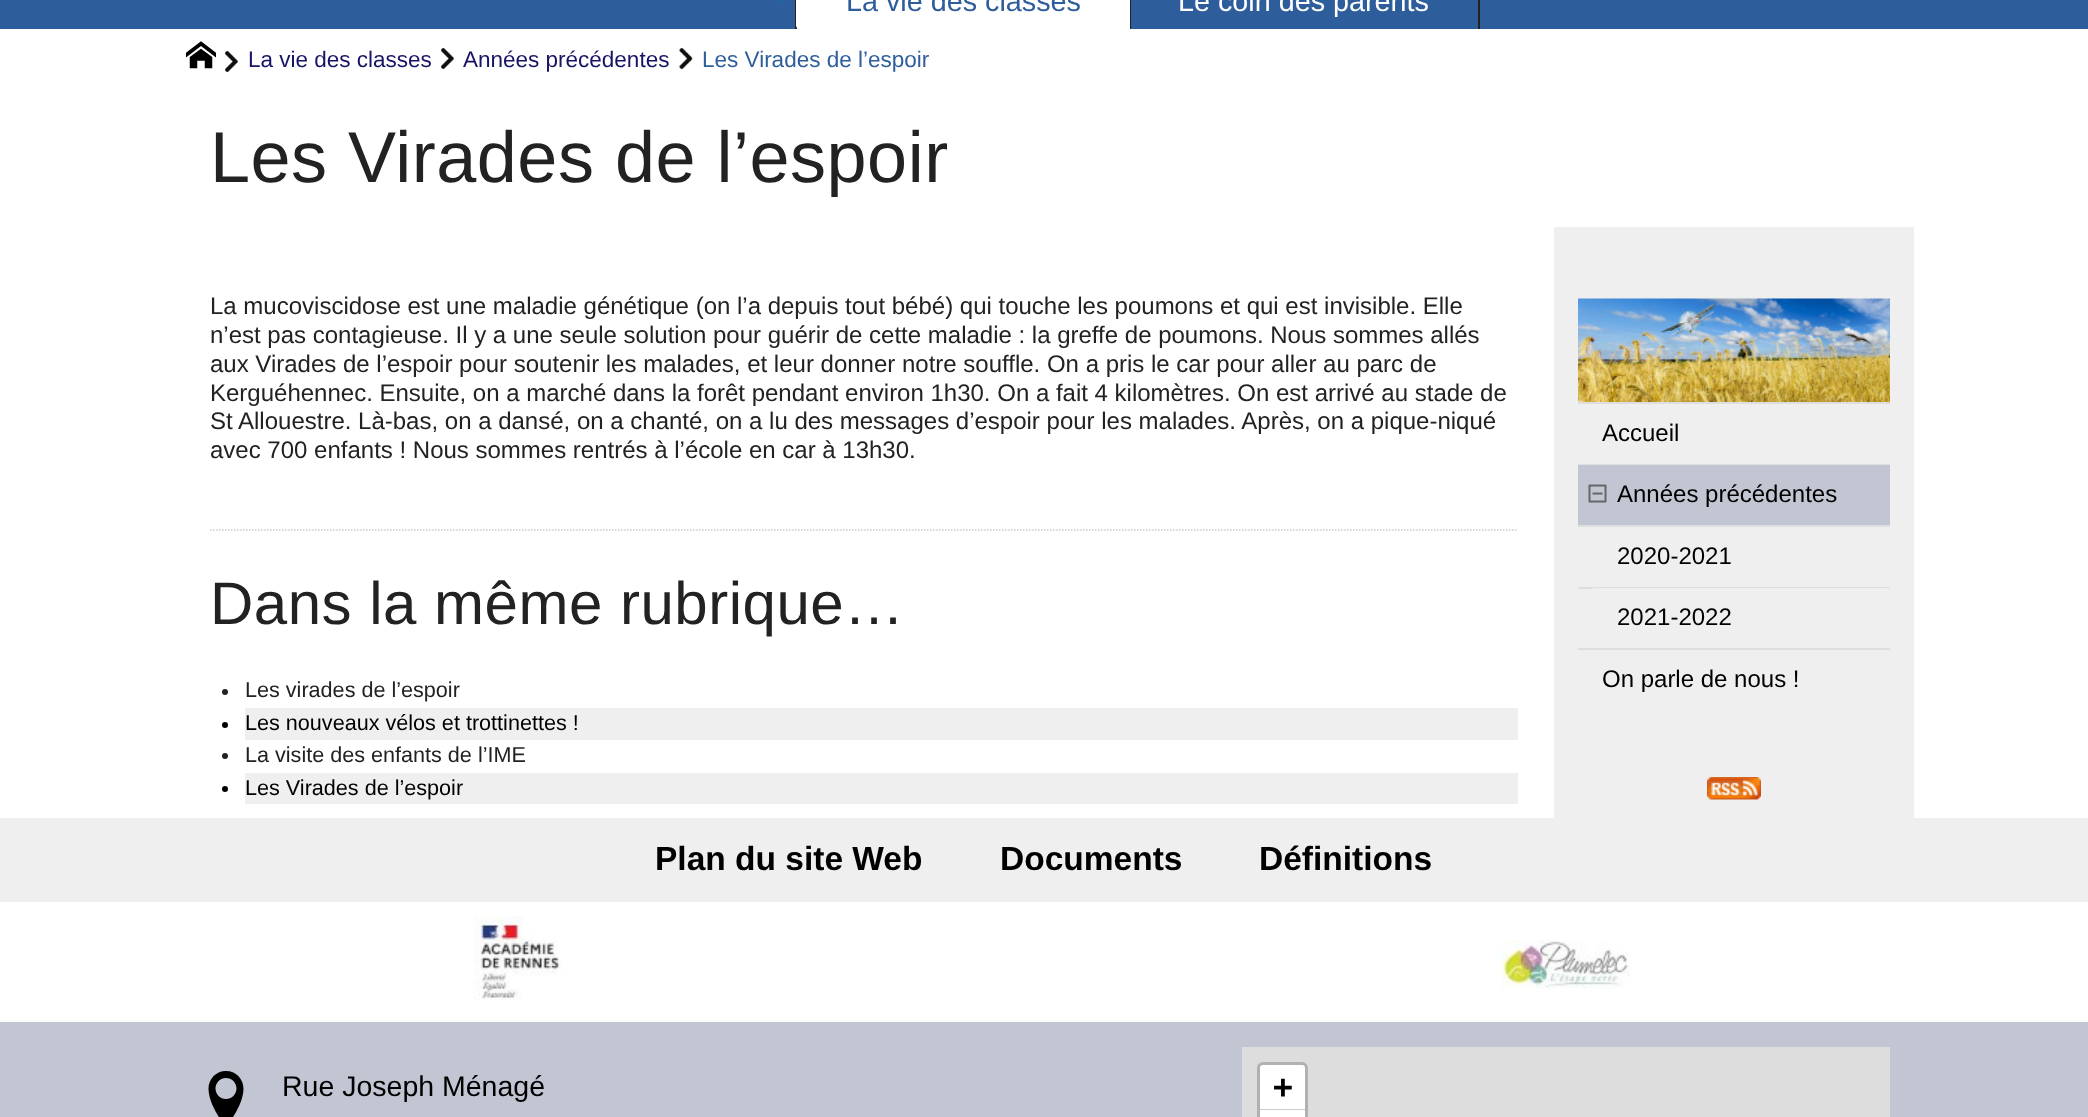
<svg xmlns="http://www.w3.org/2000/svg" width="2088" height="1117">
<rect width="100%" height="100%" fill="#fff"/>
<rect width="2088" height="29" fill="#2e5d9b"/>
<path d="M775.5-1.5h12l-6 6z" fill="#2362a3"/>
<rect x="795" width="2" height="29" fill="#222"/>
<rect x="797" width="333" height="29" fill="#fff"/>
<path d="M796 28v-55l2 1v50z" fill="#fff"/>
<text x="846" y="11" style="font-family:Liberation Sans;font-size:28.75px;fill:#2e5d9b">La vie des classes</text>
<rect x="1130" width="1" height="29" fill="#222"/>
<text x="1178" y="11" style="font-family:Liberation Sans;font-size:28.75px;fill:#fff">Le coin des parents</text>
<rect x="1478" width="2" height="29" fill="#222"/>
<image x="225" y="51" width="13" height="21" href="media/1.png"/>
<image x="186" y="41" width="30" height="28" href="media/2.png"/>
<text x="248" y="67" style="font-family:Liberation Sans;font-size:22.5px;fill:#171466">La vie des classes</text>
<image x="441" y="48" width="13" height="21" href="media/1.png"/>
<text x="463" y="67" style="font-family:Liberation Sans;font-size:22.5px;fill:#171466">Années précédentes</text>
<image x="679" y="48" width="14" height="21" href="media/3.png"/>
<text x="702" y="67" style="font-family:Liberation Sans;font-size:22.5px;fill:#2e5d9b">Les Virades de l’espoir</text>
<text x="210" y="182" style="font-family:Liberation Sans;font-size:72px;letter-spacing:0.5px;fill:#222">Les Virades de l’espoir</text>
<text x="210" y="314" style="font-family:Liberation Sans;font-size:24px;fill:#222">La mucoviscidose est une maladie génétique (on l’a depuis tout bébé) qui touche les poumons et qui est invisible. Elle</text>
<text x="210" y="343" style="font-family:Liberation Sans;font-size:24px;fill:#222">n’est pas contagieuse. Il y a une seule solution pour guérir de cette maladie : la greffe de poumons. Nous sommes allés</text>
<text x="210" y="372" style="font-family:Liberation Sans;font-size:24px;fill:#222">aux Virades de l’espoir pour soutenir les malades, et leur donner notre souffle. On a pris le car pour aller au parc de</text>
<text x="210" y="401" style="font-family:Liberation Sans;font-size:24px;fill:#222">Kerguéhennec. Ensuite, on a marché dans la forêt pendant environ 1h30. On a fait 4 kilomètres. On est arrivé au stade de</text>
<text x="210" y="429" style="font-family:Liberation Sans;font-size:24px;fill:#222">St Allouestre. Là-bas, on a dansé, on a chanté, on a lu des messages d’espoir pour les malades. Après, on a pique-niqué</text>
<text x="210" y="458" style="font-family:Liberation Sans;font-size:24px;fill:#222">avec 700 enfants ! Nous sommes rentrés à l’école en car à 13h30.</text>
<path d="M210 530h1308" fill="none" stroke="#ccc" stroke-width="1.5" stroke-dasharray="1.5 1.5"/>
<text x="210" y="624" style="font-family:Liberation Sans;font-size:60px;letter-spacing:0.5px;fill:#222">Dans la même rubrique…</text>
<circle cx="225" cy="692" r="3" fill="#222"/>
<text x="245" y="697" style="font-family:Liberation Sans;font-size:21.6px;fill:#222">Les virades de l’espoir</text>
<rect x="245" y="708" width="1273" height="32" fill="#efefef"/>
<circle cx="225" cy="725" r="3" fill="#000"/>
<text x="245" y="730" style="font-family:Liberation Sans;font-size:21.6px;fill:#000">Les nouveaux vélos et trottinettes !</text>
<circle cx="225" cy="756" r="3" fill="#222"/>
<text x="245" y="762" style="font-family:Liberation Sans;font-size:21.6px;fill:#222">La visite des enfants de l’IME</text>
<rect x="245" y="773" width="1273" height="31" fill="#efefef"/>
<circle cx="225" cy="789" r="3" fill="#000"/>
<text x="245" y="795" style="font-family:Liberation Sans;font-size:21.6px;fill:#000">Les Virades de l’espoir</text>
<rect x="1554" y="227" width="360" height="591" fill="#efefef"/>
<image x="1578" y="298" width="312" height="104" href="media/4.png"/>
<rect x="1578" y="402" width="312" height="2" fill="#dedede"/>
<text x="1602" y="441" style="font-family:Liberation Sans;font-size:24px;fill:#000">Accueil</text>
<rect x="1578" y="464" width="312" height="1" fill="#dedede"/>
<rect x="1578" y="465" width="312" height="60" fill="#c1c6d2"/>
<image x="1588" y="484" width="19" height="19" href="media/5.png"/>
<text x="1617" y="502" style="font-family:Liberation Sans;font-size:24px;fill:#000">Années précédentes</text>
<rect x="1578" y="525" width="312" height="2" fill="#dedede"/>
<text x="1617" y="564" style="font-family:Liberation Sans;font-size:24px;fill:#000">2020-2021</text>
<rect x="1578" y="587" width="312" height="2" fill="#dedede"/>
<rect x="1593" y="588" width="297" height="1" fill="#efefef"/>
<text x="1617" y="625" style="font-family:Liberation Sans;font-size:24px;fill:#000">2021-2022</text>
<rect x="1578" y="648" width="312" height="2" fill="#dedede"/>
<text x="1602" y="687" style="font-family:Liberation Sans;font-size:24px;fill:#000">On parle de nous !</text>
<image x="1707" y="777" width="54" height="23" href="media/6.png"/>
<rect y="1022" width="2088" height="95" fill="#c1c6d2"/>
<rect y="818" width="2088" height="84" fill="#efefef"/>
<text x="655" y="870" style="font-family:Liberation Sans;font-size:33.5px;font-weight:bold;fill:#000">Plan du site Web</text>
<text x="1000" y="870" style="font-family:Liberation Sans;font-size:33.5px;font-weight:bold;fill:#000">Documents</text>
<text x="1259" y="870" style="font-family:Liberation Sans;font-size:33.5px;font-weight:bold;fill:#000">Définitions</text>
<image x="473" y="916" width="89" height="84" href="media/7.png"/>
<image x="1501" y="940" width="130" height="49" href="media/8.png"/>
<image x="208" y="1071" width="36" height="46" href="media/9.png"/>
<text x="282" y="1096" style="font-family:Liberation Sans;font-size:28.5px;fill:#000">Rue Joseph Ménagé</text>
<rect x="1242" y="1047" width="648" height="70" fill="#ddd"/>
<rect x="1258.5" y="1063.5" width="48" height="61" rx="4.5" fill="none" stroke="#b1b1b1" stroke-width="3"/>
<path d="M1263 1065h39c1.5 0 3 1.5 3 3v42h-45v-42c0-1.5 1.5-3 3-3z" fill="#fff"/>
<rect x="1260" y="1109" width="45" height="1" fill="#ccc"/>
<text x="1273" y="1098" style="font-family:DejaVu Sans Mono;font-size:33px;font-weight:bold;fill:#000">+</text>
<rect x="1260" y="1110" width="45" height="7" fill="#fff"/>
</svg>
